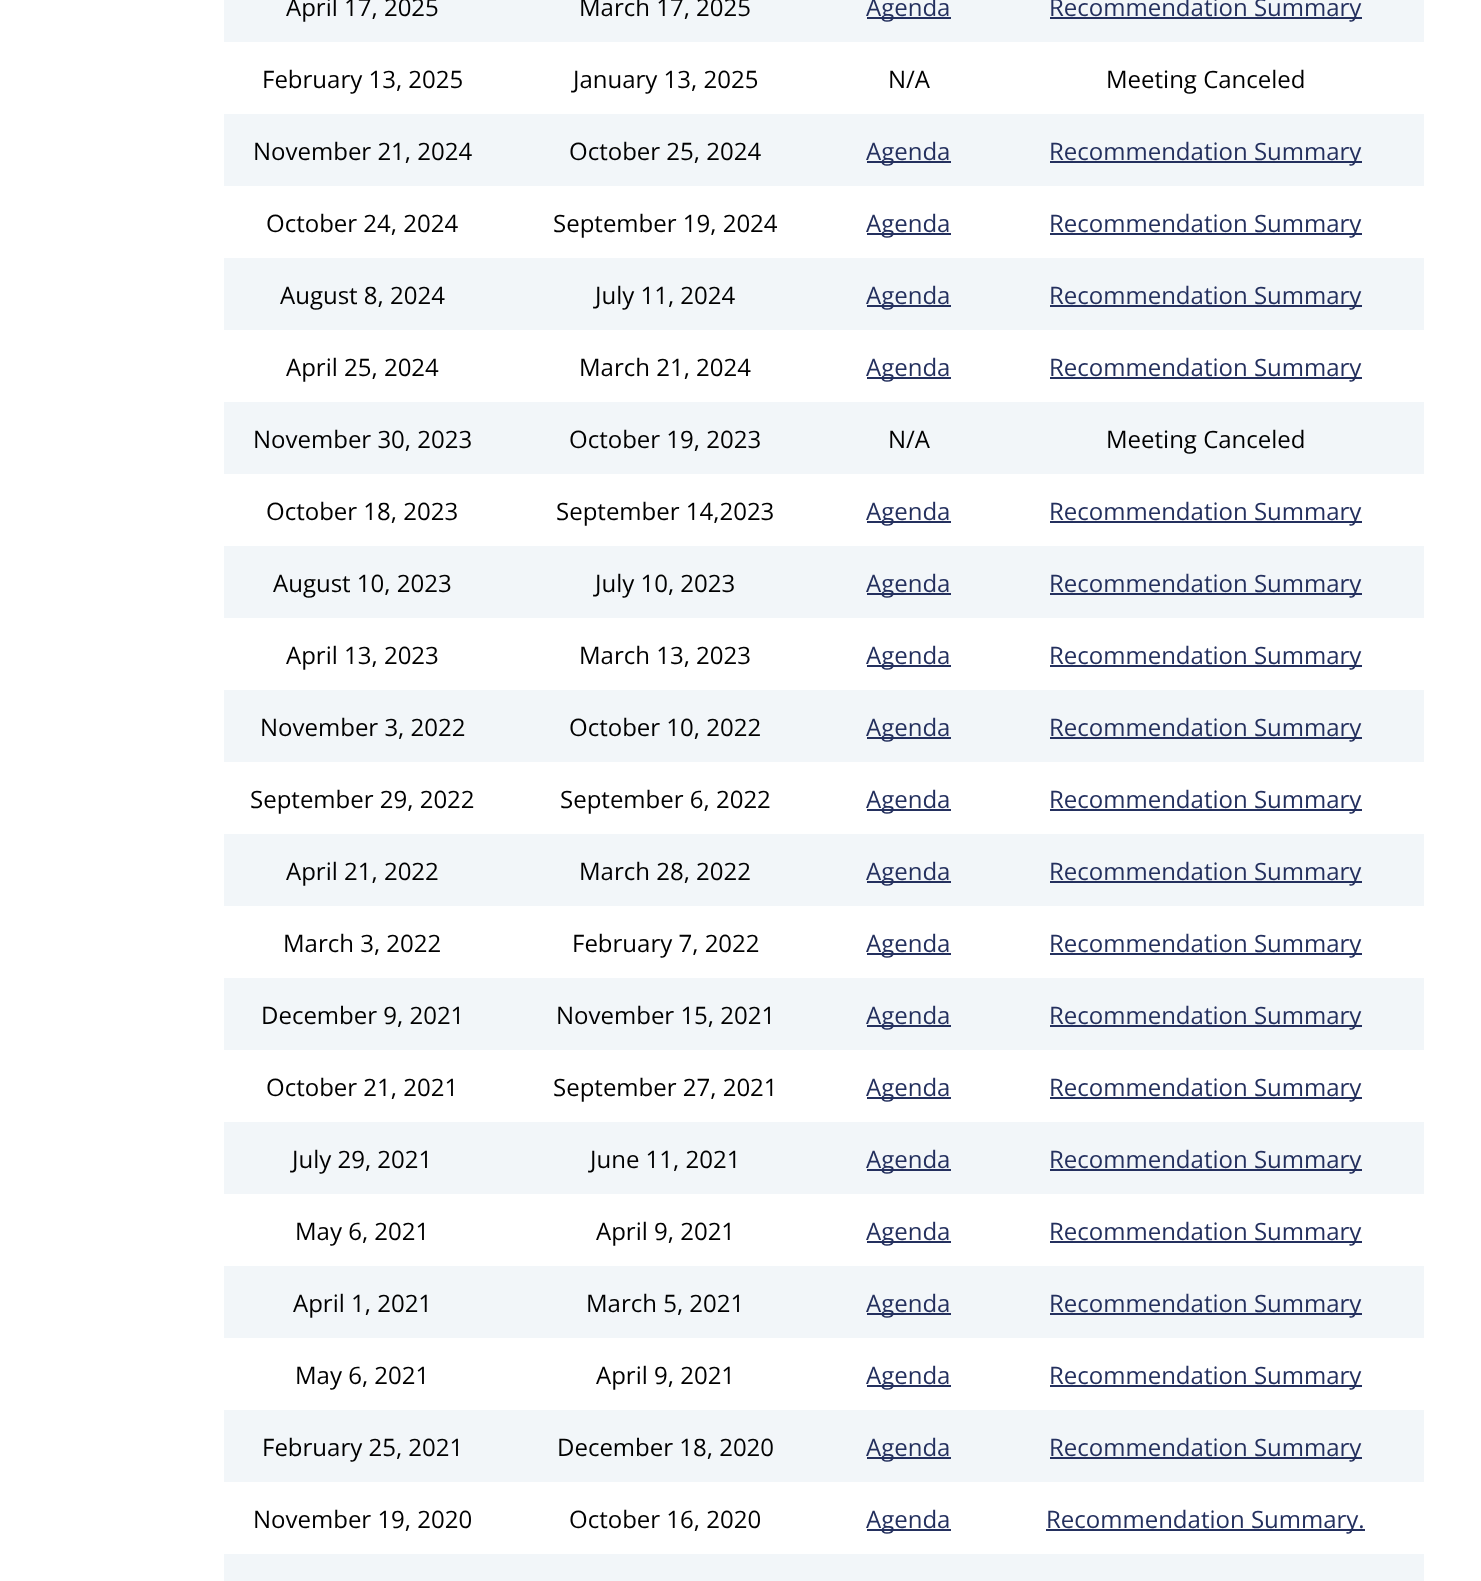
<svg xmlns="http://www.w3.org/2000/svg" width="1481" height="1581">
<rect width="100%" height="100%" fill="#fff"/>
<rect x="224" width="1200" height="42" fill="#f2f6f9"/>
<text x="286" y="16" style="font-family:Open Sans;font-size:24px;fill:#000">April 17, 2025</text>
<text x="579" y="16" style="font-family:Open Sans;font-size:24px;fill:#000">March 17, 2025</text>
<rect x="867" y="17" width="84" height="2" fill="#24305e"/>
<text x="866" y="16" style="font-family:Open Sans;font-size:24px;fill:#24305e">Agenda</text>
<rect x="1050" y="17" width="312" height="2" fill="#24305e"/>
<text x="1049" y="16" style="font-family:Open Sans;font-size:24px;fill:#24305e">Recommendation Summary</text>
<text x="262" y="88" style="font-family:Open Sans;font-size:24px;fill:#000">February 13, 2025</text>
<text x="573" y="88" style="font-family:Open Sans;font-size:24px;fill:#000">January 13, 2025</text>
<text x="888" y="88" style="font-family:Open Sans;font-size:24px;fill:#000">N/A</text>
<text x="1106" y="88" style="font-family:Open Sans;font-size:24px;fill:#000">Meeting Canceled</text>
<rect x="224" y="114" width="1200" height="72" fill="#f2f6f9"/>
<text x="253" y="160" style="font-family:Open Sans;font-size:24px;fill:#000">November 21, 2024</text>
<text x="569" y="160" style="font-family:Open Sans;font-size:24px;fill:#000">October 25, 2024</text>
<rect x="867" y="161" width="84" height="2" fill="#24305e"/>
<text x="866" y="160" style="font-family:Open Sans;font-size:24px;fill:#24305e">Agenda</text>
<rect x="1050" y="161" width="312" height="2" fill="#24305e"/>
<text x="1049" y="160" style="font-family:Open Sans;font-size:24px;fill:#24305e">Recommendation Summary</text>
<text x="266" y="232" style="font-family:Open Sans;font-size:24px;fill:#000">October 24, 2024</text>
<text x="553" y="232" style="font-family:Open Sans;font-size:24px;fill:#000">September 19, 2024</text>
<rect x="867" y="233" width="84" height="2" fill="#24305e"/>
<text x="866" y="232" style="font-family:Open Sans;font-size:24px;fill:#24305e">Agenda</text>
<rect x="1050" y="233" width="312" height="2" fill="#24305e"/>
<text x="1049" y="232" style="font-family:Open Sans;font-size:24px;fill:#24305e">Recommendation Summary</text>
<rect x="224" y="258" width="1200" height="72" fill="#f2f6f9"/>
<text x="280" y="304" style="font-family:Open Sans;font-size:24px;fill:#000">August 8, 2024</text>
<text x="595" y="304" style="font-family:Open Sans;font-size:24px;fill:#000">July 11, 2024</text>
<rect x="867" y="305" width="84" height="2" fill="#24305e"/>
<text x="866" y="304" style="font-family:Open Sans;font-size:24px;fill:#24305e">Agenda</text>
<rect x="1050" y="305" width="312" height="2" fill="#24305e"/>
<text x="1049" y="304" style="font-family:Open Sans;font-size:24px;fill:#24305e">Recommendation Summary</text>
<text x="286" y="376" style="font-family:Open Sans;font-size:24px;fill:#000">April 25, 2024</text>
<text x="579" y="376" style="font-family:Open Sans;font-size:24px;fill:#000">March 21, 2024</text>
<rect x="867" y="377" width="84" height="2" fill="#24305e"/>
<text x="866" y="376" style="font-family:Open Sans;font-size:24px;fill:#24305e">Agenda</text>
<rect x="1050" y="377" width="312" height="2" fill="#24305e"/>
<text x="1049" y="376" style="font-family:Open Sans;font-size:24px;fill:#24305e">Recommendation Summary</text>
<rect x="224" y="402" width="1200" height="72" fill="#f2f6f9"/>
<text x="253" y="448" style="font-family:Open Sans;font-size:24px;fill:#000">November 30, 2023</text>
<text x="569" y="448" style="font-family:Open Sans;font-size:24px;fill:#000">October 19, 2023</text>
<text x="888" y="448" style="font-family:Open Sans;font-size:24px;fill:#000">N/A</text>
<text x="1106" y="448" style="font-family:Open Sans;font-size:24px;fill:#000">Meeting Canceled</text>
<text x="266" y="520" style="font-family:Open Sans;font-size:24px;fill:#000">October 18, 2023</text>
<text x="556" y="520" style="font-family:Open Sans;font-size:24px;fill:#000">September 14,2023</text>
<rect x="867" y="521" width="84" height="2" fill="#24305e"/>
<text x="866" y="520" style="font-family:Open Sans;font-size:24px;fill:#24305e">Agenda</text>
<rect x="1050" y="521" width="312" height="2" fill="#24305e"/>
<text x="1049" y="520" style="font-family:Open Sans;font-size:24px;fill:#24305e">Recommendation Summary</text>
<rect x="224" y="546" width="1200" height="72" fill="#f2f6f9"/>
<text x="273" y="592" style="font-family:Open Sans;font-size:24px;fill:#000">August 10, 2023</text>
<text x="595" y="592" style="font-family:Open Sans;font-size:24px;fill:#000">July 10, 2023</text>
<rect x="867" y="593" width="84" height="2" fill="#24305e"/>
<text x="866" y="592" style="font-family:Open Sans;font-size:24px;fill:#24305e">Agenda</text>
<rect x="1050" y="593" width="312" height="2" fill="#24305e"/>
<text x="1049" y="592" style="font-family:Open Sans;font-size:24px;fill:#24305e">Recommendation Summary</text>
<text x="286" y="664" style="font-family:Open Sans;font-size:24px;fill:#000">April 13, 2023</text>
<text x="579" y="664" style="font-family:Open Sans;font-size:24px;fill:#000">March 13, 2023</text>
<rect x="867" y="665" width="84" height="2" fill="#24305e"/>
<text x="866" y="664" style="font-family:Open Sans;font-size:24px;fill:#24305e">Agenda</text>
<rect x="1050" y="665" width="312" height="2" fill="#24305e"/>
<text x="1049" y="664" style="font-family:Open Sans;font-size:24px;fill:#24305e">Recommendation Summary</text>
<rect x="224" y="690" width="1200" height="72" fill="#f2f6f9"/>
<text x="260" y="736" style="font-family:Open Sans;font-size:24px;fill:#000">November 3, 2022</text>
<text x="569" y="736" style="font-family:Open Sans;font-size:24px;fill:#000">October 10, 2022</text>
<rect x="867" y="737" width="84" height="2" fill="#24305e"/>
<text x="866" y="736" style="font-family:Open Sans;font-size:24px;fill:#24305e">Agenda</text>
<rect x="1050" y="737" width="312" height="2" fill="#24305e"/>
<text x="1049" y="736" style="font-family:Open Sans;font-size:24px;fill:#24305e">Recommendation Summary</text>
<text x="250" y="808" style="font-family:Open Sans;font-size:24px;fill:#000">September 29, 2022</text>
<text x="560" y="808" style="font-family:Open Sans;font-size:24px;fill:#000">September 6, 2022</text>
<rect x="867" y="809" width="84" height="2" fill="#24305e"/>
<text x="866" y="808" style="font-family:Open Sans;font-size:24px;fill:#24305e">Agenda</text>
<rect x="1050" y="809" width="312" height="2" fill="#24305e"/>
<text x="1049" y="808" style="font-family:Open Sans;font-size:24px;fill:#24305e">Recommendation Summary</text>
<rect x="224" y="834" width="1200" height="72" fill="#f2f6f9"/>
<text x="286" y="880" style="font-family:Open Sans;font-size:24px;fill:#000">April 21, 2022</text>
<text x="579" y="880" style="font-family:Open Sans;font-size:24px;fill:#000">March 28, 2022</text>
<rect x="867" y="881" width="84" height="2" fill="#24305e"/>
<text x="866" y="880" style="font-family:Open Sans;font-size:24px;fill:#24305e">Agenda</text>
<rect x="1050" y="881" width="312" height="2" fill="#24305e"/>
<text x="1049" y="880" style="font-family:Open Sans;font-size:24px;fill:#24305e">Recommendation Summary</text>
<text x="283" y="952" style="font-family:Open Sans;font-size:24px;fill:#000">March 3, 2022</text>
<text x="572" y="952" style="font-family:Open Sans;font-size:24px;fill:#000">February 7, 2022</text>
<rect x="867" y="953" width="84" height="2" fill="#24305e"/>
<text x="866" y="952" style="font-family:Open Sans;font-size:24px;fill:#24305e">Agenda</text>
<rect x="1050" y="953" width="312" height="2" fill="#24305e"/>
<text x="1049" y="952" style="font-family:Open Sans;font-size:24px;fill:#24305e">Recommendation Summary</text>
<rect x="224" y="978" width="1200" height="72" fill="#f2f6f9"/>
<text x="261" y="1024" style="font-family:Open Sans;font-size:24px;fill:#000">December 9, 2021</text>
<text x="556" y="1024" style="font-family:Open Sans;font-size:24px;fill:#000">November 15, 2021</text>
<rect x="867" y="1025" width="84" height="2" fill="#24305e"/>
<text x="866" y="1024" style="font-family:Open Sans;font-size:24px;fill:#24305e">Agenda</text>
<rect x="1050" y="1025" width="312" height="2" fill="#24305e"/>
<text x="1049" y="1024" style="font-family:Open Sans;font-size:24px;fill:#24305e">Recommendation Summary</text>
<text x="266" y="1096" style="font-family:Open Sans;font-size:24px;fill:#000">October 21, 2021</text>
<text x="553" y="1096" style="font-family:Open Sans;font-size:24px;fill:#000">September 27, 2021</text>
<rect x="867" y="1097" width="84" height="2" fill="#24305e"/>
<text x="866" y="1096" style="font-family:Open Sans;font-size:24px;fill:#24305e">Agenda</text>
<rect x="1050" y="1097" width="312" height="2" fill="#24305e"/>
<text x="1049" y="1096" style="font-family:Open Sans;font-size:24px;fill:#24305e">Recommendation Summary</text>
<rect x="224" y="1122" width="1200" height="72" fill="#f2f6f9"/>
<text x="292" y="1168" style="font-family:Open Sans;font-size:24px;fill:#000">July 29, 2021</text>
<text x="590" y="1168" style="font-family:Open Sans;font-size:24px;fill:#000">June 11, 2021</text>
<rect x="867" y="1169" width="84" height="2" fill="#24305e"/>
<text x="866" y="1168" style="font-family:Open Sans;font-size:24px;fill:#24305e">Agenda</text>
<rect x="1050" y="1169" width="312" height="2" fill="#24305e"/>
<text x="1049" y="1168" style="font-family:Open Sans;font-size:24px;fill:#24305e">Recommendation Summary</text>
<text x="295" y="1240" style="font-family:Open Sans;font-size:24px;fill:#000">May 6, 2021</text>
<text x="596" y="1240" style="font-family:Open Sans;font-size:24px;fill:#000">April 9, 2021</text>
<rect x="867" y="1241" width="84" height="2" fill="#24305e"/>
<text x="866" y="1240" style="font-family:Open Sans;font-size:24px;fill:#24305e">Agenda</text>
<rect x="1050" y="1241" width="312" height="2" fill="#24305e"/>
<text x="1049" y="1240" style="font-family:Open Sans;font-size:24px;fill:#24305e">Recommendation Summary</text>
<rect x="224" y="1266" width="1200" height="72" fill="#f2f6f9"/>
<text x="293" y="1312" style="font-family:Open Sans;font-size:24px;fill:#000">April 1, 2021</text>
<text x="586" y="1312" style="font-family:Open Sans;font-size:24px;fill:#000">March 5, 2021</text>
<rect x="867" y="1313" width="84" height="2" fill="#24305e"/>
<text x="866" y="1312" style="font-family:Open Sans;font-size:24px;fill:#24305e">Agenda</text>
<rect x="1050" y="1313" width="312" height="2" fill="#24305e"/>
<text x="1049" y="1312" style="font-family:Open Sans;font-size:24px;fill:#24305e">Recommendation Summary</text>
<text x="295" y="1384" style="font-family:Open Sans;font-size:24px;fill:#000">May 6, 2021</text>
<text x="596" y="1384" style="font-family:Open Sans;font-size:24px;fill:#000">April 9, 2021</text>
<rect x="867" y="1385" width="84" height="2" fill="#24305e"/>
<text x="866" y="1384" style="font-family:Open Sans;font-size:24px;fill:#24305e">Agenda</text>
<rect x="1050" y="1385" width="312" height="2" fill="#24305e"/>
<text x="1049" y="1384" style="font-family:Open Sans;font-size:24px;fill:#24305e">Recommendation Summary</text>
<rect x="224" y="1410" width="1200" height="72" fill="#f2f6f9"/>
<text x="262" y="1456" style="font-family:Open Sans;font-size:24px;fill:#000">February 25, 2021</text>
<text x="557" y="1456" style="font-family:Open Sans;font-size:24px;fill:#000">December 18, 2020</text>
<rect x="867" y="1457" width="84" height="2" fill="#24305e"/>
<text x="866" y="1456" style="font-family:Open Sans;font-size:24px;fill:#24305e">Agenda</text>
<rect x="1050" y="1457" width="312" height="2" fill="#24305e"/>
<text x="1049" y="1456" style="font-family:Open Sans;font-size:24px;fill:#24305e">Recommendation Summary</text>
<text x="253" y="1528" style="font-family:Open Sans;font-size:24px;fill:#000">November 19, 2020</text>
<text x="569" y="1528" style="font-family:Open Sans;font-size:24px;fill:#000">October 16, 2020</text>
<rect x="867" y="1529" width="84" height="2" fill="#24305e"/>
<text x="866" y="1528" style="font-family:Open Sans;font-size:24px;fill:#24305e">Agenda</text>
<rect x="1046" y="1529" width="319" height="2" fill="#24305e"/>
<text x="1046" y="1528" style="font-family:Open Sans;font-size:24px;fill:#24305e">Recommendation Summary.</text>
<rect x="224" y="1554" width="1200" height="27" fill="#f2f6f9"/>
</svg>
